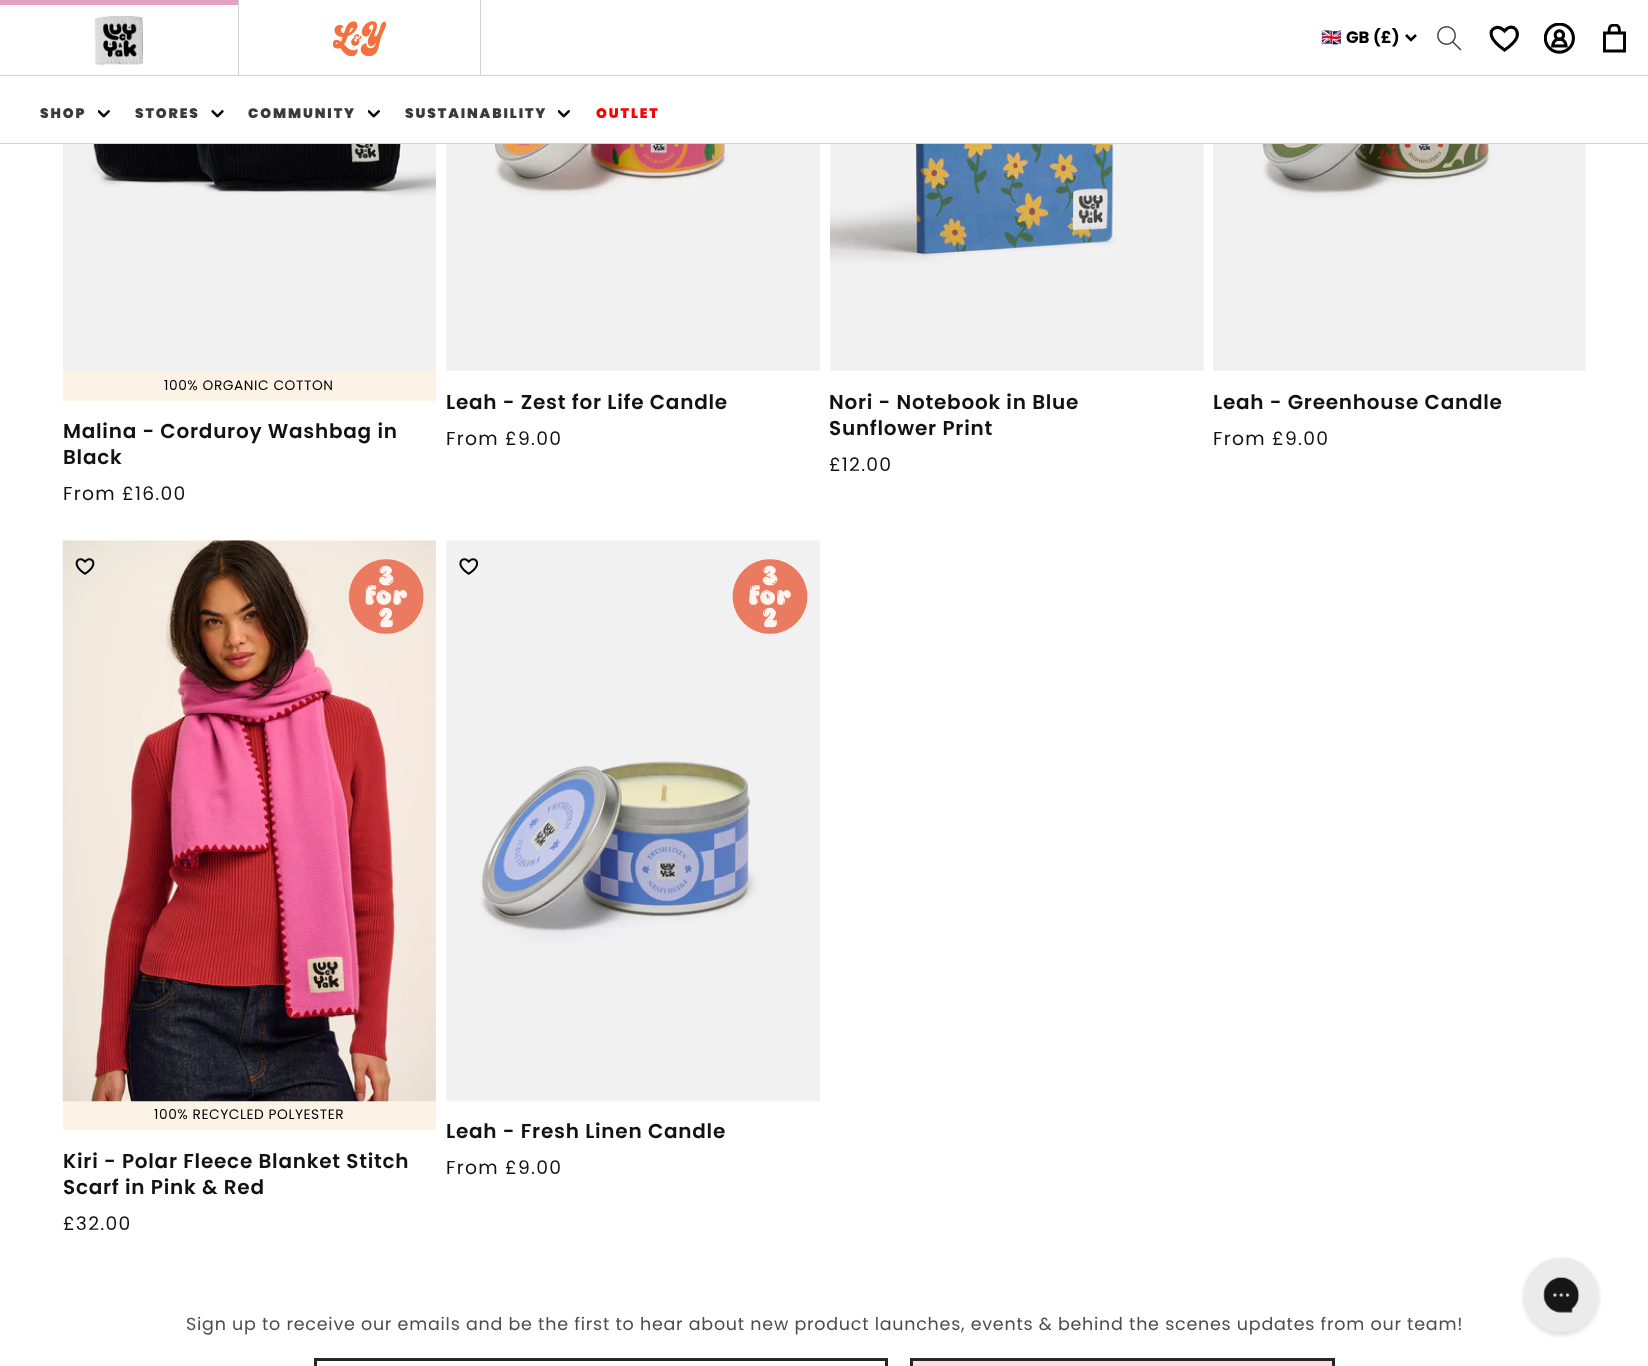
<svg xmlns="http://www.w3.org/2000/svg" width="1648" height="1366">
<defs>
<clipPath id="clip1"><rect x="1600" y="24" width="29" height="29"/></clipPath>
</defs>
<rect width="100%" height="100%" fill="#fff"/>
<rect y="75" width="1648" height="1" fill="#d3d3d3"/>
<rect x="238" width="1" height="75" fill="#d3d3d3"/>
<rect width="238" height="5" fill="#e4a2c1"/>
<image x="94" y="15" width="50" height="51" href="media/1.png"/>
<rect x="480" width="1" height="75" fill="#d3d3d3"/>
<image x="333" y="21" width="53" height="35" href="media/2.png"/>
<path d="M1406 35l5 5l5-5" fill="none" stroke="#000" stroke-width="2.5"/>
<text x="1321" y="43" style="font-family:Noto Color Emoji;font-size:16.5px;font-weight:bold;fill:#000">🇬🇧</text>
<text x="1346" y="43" style="font-family:Poppins;font-size:16.5px;font-weight:bold;fill:#000">GB (£)</text>
<image x="1437" y="26" width="25" height="25" href="media/3.png"/>
<path d="M1503.5 30l1 1c1.5-1.5 2.5-3 4.5-3.5c6-2 9.5 4 8 9.5c-2 5.5-8 10-12.5 13c-5-3.5-11-8-13-14c-2-7.5 6-11.5 12-6z" fill="none" stroke="#000" stroke-width="3.1"/>
<image x="1544" y="23" width="31" height="31" href="media/4.png"/>
<g clip-path="url(#clip1)">
<path d="M1604.5 51v-18h20v18zm15-18h-10.5c0-4.5 0-8 5.5-8c5 0 5 3.5 5 8z" fill="none" stroke="#000" stroke-width="2.9"/>
</g>
<rect y="143" width="1648" height="1" fill="#d3d3d3"/>
<text x="40" y="118" style="font-family:Poppins;font-size:13.75px;font-weight:900;letter-spacing:1.9px;fill:#3b3939">SHOP</text>
<image x="98" y="110" width="12" height="8" href="media/5.png"/>
<text x="135" y="118" style="font-family:Poppins;font-size:13.75px;font-weight:900;letter-spacing:1.9px;fill:#3b3939">STORES</text>
<image x="211" y="110" width="13" height="8" href="media/6.png"/>
<text x="248" y="118" style="font-family:Poppins;font-size:13.75px;font-weight:900;letter-spacing:1.9px;fill:#3b3939">COMMUNITY</text>
<image x="368" y="110" width="12" height="8" href="media/5.png"/>
<text x="405" y="118" style="font-family:Poppins;font-size:13.75px;font-weight:900;letter-spacing:1.9px;fill:#3b3939">SUSTAINABILITY</text>
<image x="558" y="110" width="12" height="8" href="media/5.png"/>
<text x="596" y="118" style="font-family:Poppins;font-size:13.75px;font-weight:900;letter-spacing:1.9px;fill:#f00">OUTLET</text>
<image x="63" y="144" width="374" height="227" href="media/7.png"/>
<rect x="63" y="371" width="373" height="30" fill="#fcf3e6"/>
<text x="164" y="390" style="font-family:Poppins;font-size:13.75px;letter-spacing:0.55px;fill:#000">100% ORGANIC COTTON</text>
<text x="63" y="438" style="font-family:Poppins;font-size:20px;font-weight:600;letter-spacing:0.75px;fill:#121212">Malina - Corduroy Washbag in</text>
<text x="63" y="464" style="font-family:Poppins;font-size:20px;font-weight:600;letter-spacing:0.75px;fill:#121212">Black</text>
<text x="63" y="500" style="font-family:Poppins;font-size:18.75px;letter-spacing:1.25px;fill:#121212">From £16.00</text>
<image x="446" y="144" width="374" height="227" href="media/8.png"/>
<text x="446" y="409" style="font-family:Poppins;font-size:20px;font-weight:600;letter-spacing:0.75px;fill:#121212">Leah - Zest for Life Candle</text>
<text x="446" y="445" style="font-family:Poppins;font-size:18.75px;letter-spacing:1.25px;fill:#121212">From £9.00</text>
<image x="830" y="144" width="374" height="227" href="media/9.png"/>
<text x="829" y="409" style="font-family:Poppins;font-size:20px;font-weight:600;letter-spacing:0.75px;fill:#121212">Nori - Notebook in Blue</text>
<text x="829" y="435" style="font-family:Poppins;font-size:20px;font-weight:600;letter-spacing:0.75px;fill:#121212">Sunflower Print</text>
<text x="829" y="471" style="font-family:Poppins;font-size:18.75px;letter-spacing:1.25px;fill:#121212">£12.00</text>
<image x="1213" y="144" width="373" height="227" href="media/10.png"/>
<text x="1213" y="409" style="font-family:Poppins;font-size:20px;font-weight:600;letter-spacing:0.75px;fill:#121212">Leah - Greenhouse Candle</text>
<text x="1213" y="445" style="font-family:Poppins;font-size:18.75px;letter-spacing:1.25px;fill:#121212">From £9.00</text>
<rect x="63" y="1101" width="373" height="29" fill="#fcf3e6"/>
<image x="62" y="540" width="374" height="562" href="media/11.png"/>
<image x="75" y="558" width="20" height="17" href="media/12.png"/>
<image x="348" y="559" width="76" height="75" href="media/13.png"/>
<text x="154" y="1119" style="font-family:Poppins;font-size:13.75px;letter-spacing:0.55px;fill:#000">100% RECYCLED POLYESTER</text>
<text x="63" y="1168" style="font-family:Poppins;font-size:20px;font-weight:600;letter-spacing:0.75px;fill:#121212">Kiri - Polar Fleece Blanket Stitch</text>
<text x="63" y="1194" style="font-family:Poppins;font-size:20px;font-weight:600;letter-spacing:0.75px;fill:#121212">Scarf in Pink &amp; Red</text>
<text x="63" y="1230" style="font-family:Poppins;font-size:18.75px;letter-spacing:1.25px;fill:#121212">£32.00</text>
<image x="446" y="540" width="374" height="561" href="media/14.png"/>
<image x="459" y="558" width="20" height="17" href="media/15.png"/>
<image x="732" y="559" width="76" height="75" href="media/16.png"/>
<text x="446" y="1138" style="font-family:Poppins;font-size:20px;font-weight:600;letter-spacing:0.75px;fill:#121212">Leah - Fresh Linen Candle</text>
<text x="446" y="1174" style="font-family:Poppins;font-size:18.75px;letter-spacing:1.25px;fill:#121212">From £9.00</text>
<text x="186" y="1330" style="font-family:Poppins;font-size:17.5px;letter-spacing:0.75px;fill:#4d4d4d">Sign up to receive our emails and be the first to hear about new product launches, events &amp; behind the scenes updates from our team!</text>
<rect x="315.5" y="1359.5" width="571" height="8" fill="none" stroke="#292724" stroke-width="3"/>
<rect x="911.5" y="1359.5" width="422" height="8" fill="#ffdbe6" stroke="#292724" stroke-width="3"/>
<image x="1521" y="1257" width="80" height="81" href="media/17.png"/>
</svg>
